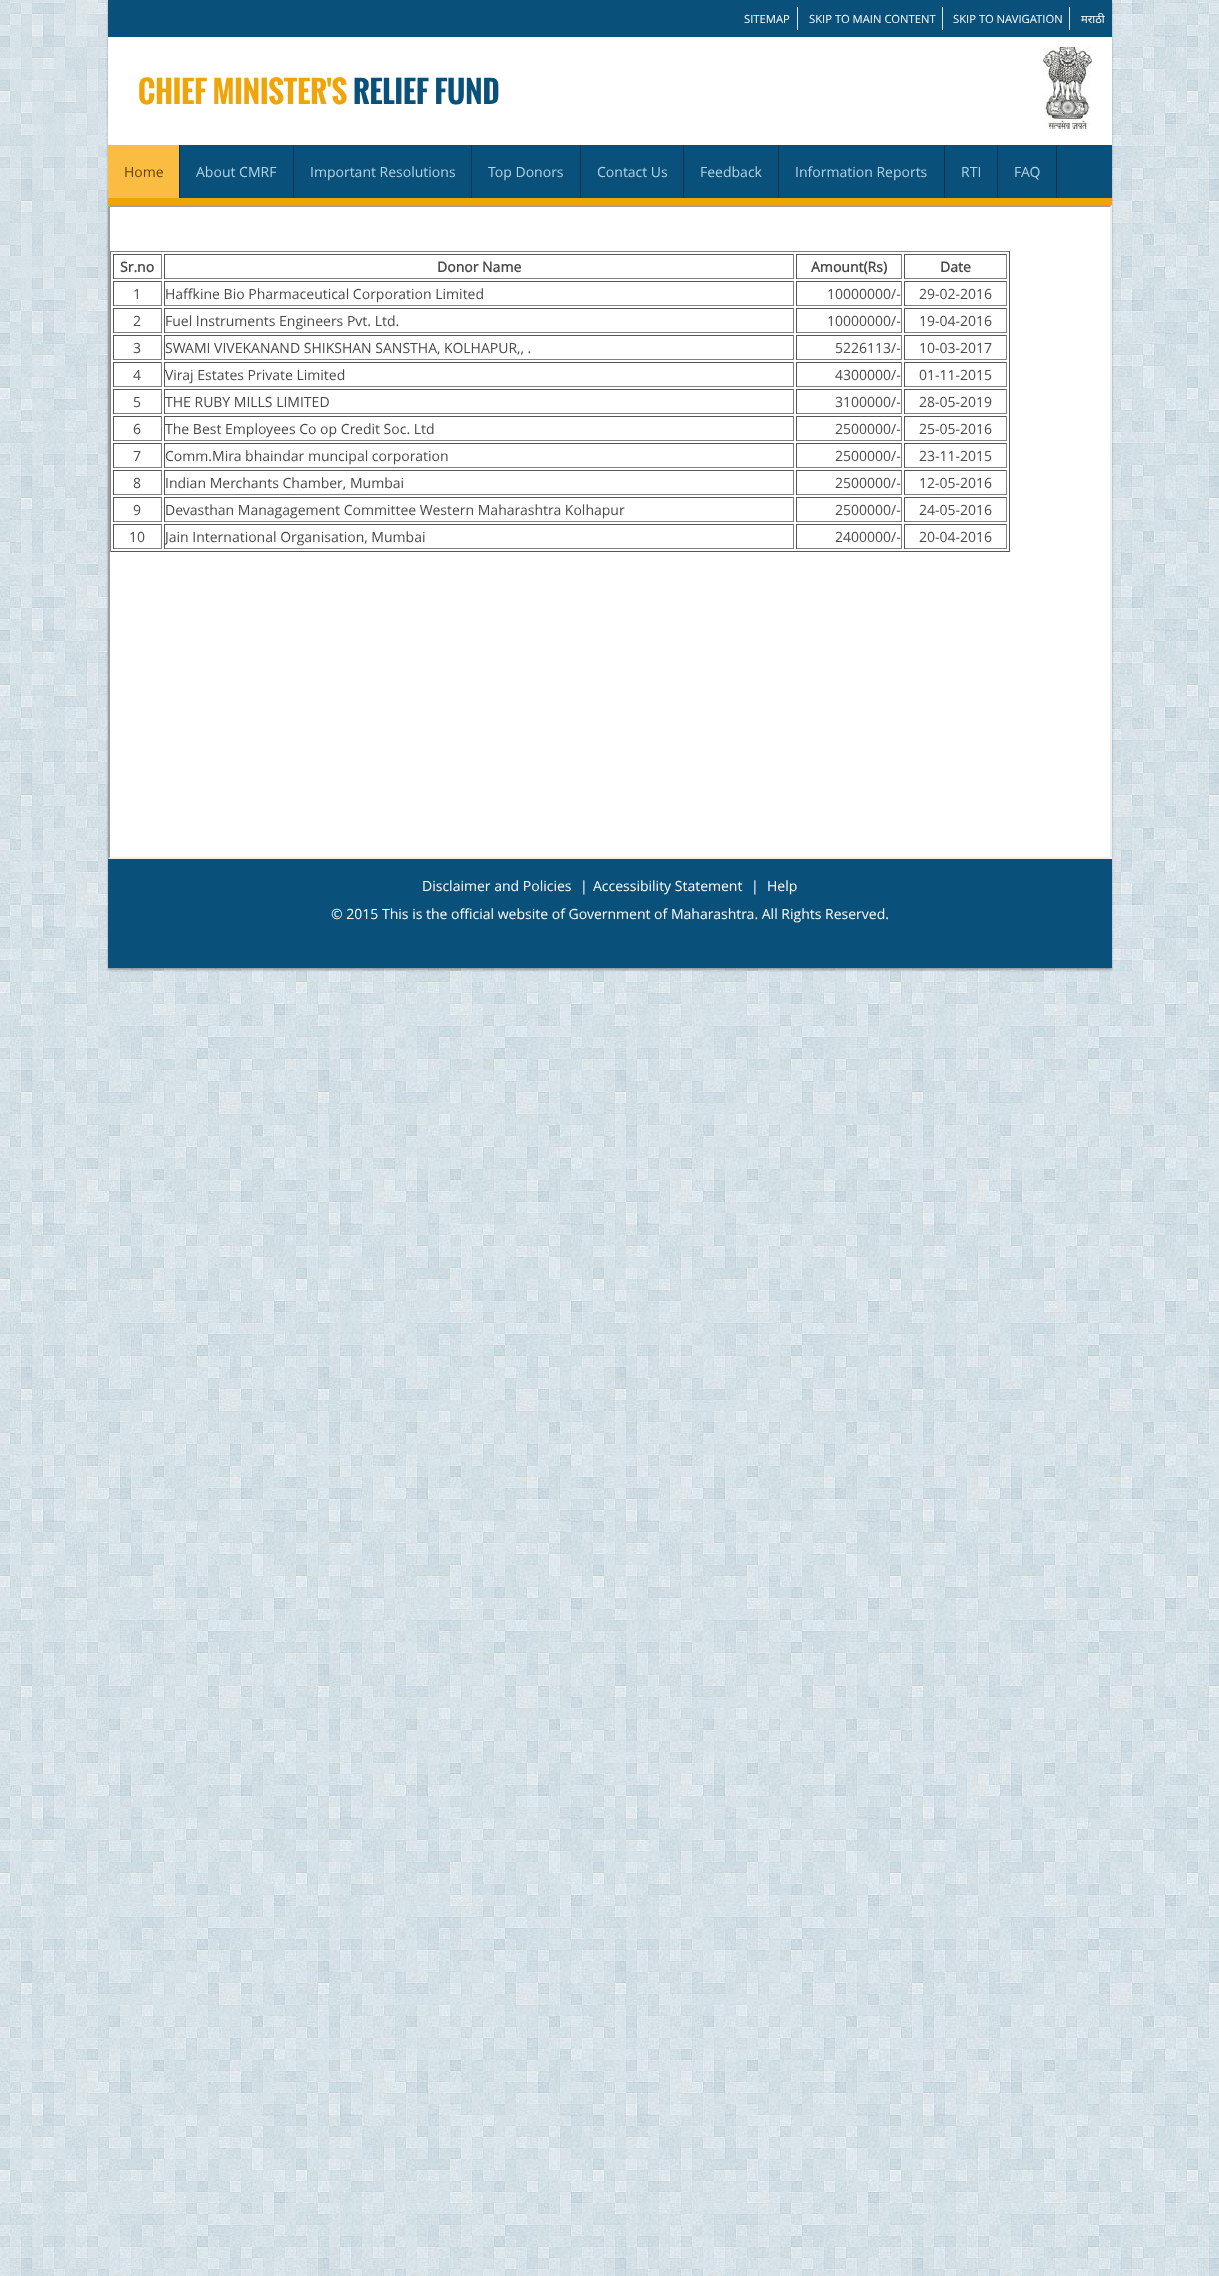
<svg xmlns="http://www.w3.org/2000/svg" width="1219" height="2276">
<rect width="100%" height="100%" fill="#fff"/>
<image x="0" y="0" width="1219" height="2276" href="media/1.png"/>
<rect x="108" y="2" width="1004" height="205" fill="#0000004d" filter="blur(1px)"/>
<rect x="108" y="37" width="1004" height="108" fill="#fff"/>
<rect x="108" width="1004" height="37" fill="#09517a"/>
<rect x="797" y="7" width="1" height="23" fill="#dee8ed"/>
<text x="744" y="23" style="font-family:Open Sans;font-size:11.25px;fill:#fff">SITEMAP</text>
<rect x="942" y="7" width="1" height="23" fill="#dee8ed"/>
<text x="809" y="23" style="font-family:Open Sans;font-size:11.25px;fill:#fff">SKIP TO MAIN CONTENT</text>
<rect x="1069" y="7" width="1" height="23" fill="#dee8ed"/>
<text x="953" y="23" style="font-family:Open Sans;font-size:11.25px;fill:#fff">SKIP TO NAVIGATION</text>
<text x="1081" y="23" style="font-family:Noto Sans;font-size:11.25px;fill:#fff">मराठी</text>
<text x="138" y="104" style="font-family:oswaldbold;font-size:30px;font-weight:bold;fill:#efa40a">CHIEF MINISTER'S</text>
<text x="353" y="104" style="font-family:oswaldbold;font-size:30px;font-weight:bold;fill:#09517a">RELIEF FUND</text>
<image x="1043" y="47" width="49" height="82" href="media/2.png"/>
<rect x="180" y="145" width="932" height="53" fill="#09517a"/>
<rect x="108" y="198" width="1004" height="7" fill="#efa40a"/>
<rect x="179" y="145" width="1" height="53" fill="#0a3852"/>
<rect x="108" y="145" width="71" height="53" fill="#fabd41"/>
<text x="124" y="177" style="font-family:Open Sans;font-size:14px;fill:#634302">Home</text>
<rect x="293" y="145" width="1" height="53" fill="#0a3852"/>
<text x="196" y="177" style="font-family:Open Sans;font-size:14px;fill:#b5d2e2">About CMRF</text>
<rect x="471" y="145" width="1" height="53" fill="#0a3852"/>
<text x="310" y="177" style="font-family:Open Sans;font-size:14px;fill:#b5d2e2">Important Resolutions</text>
<rect x="580" y="145" width="1" height="53" fill="#0a3852"/>
<text x="488" y="177" style="font-family:Open Sans;font-size:14px;fill:#b5d2e2">Top Donors</text>
<rect x="683" y="145" width="1" height="53" fill="#0a3852"/>
<text x="597" y="177" style="font-family:Open Sans;font-size:14px;fill:#b5d2e2">Contact Us</text>
<rect x="778" y="145" width="1" height="53" fill="#0a3852"/>
<text x="700" y="177" style="font-family:Open Sans;font-size:14px;fill:#b5d2e2">Feedback</text>
<rect x="944" y="145" width="1" height="53" fill="#0a3852"/>
<text x="795" y="177" style="font-family:Open Sans;font-size:14px;fill:#b5d2e2">Information Reports</text>
<rect x="997" y="145" width="1" height="53" fill="#0a3852"/>
<text x="961" y="177" style="font-family:Open Sans;font-size:14px;fill:#b5d2e2">RTI</text>
<rect x="1056" y="145" width="1" height="53" fill="#0a3852"/>
<text x="1014" y="177" style="font-family:Open Sans;font-size:14px;fill:#b5d2e2">FAQ</text>
<rect x="108" y="207" width="1004" height="654" fill="#0000004d" filter="blur(1px)"/>
<rect x="108" y="205" width="1004" height="654" fill="#fff"/>
<path d="M108 205h1004l-2 2h-1000z" fill="#9f9f9f"/>
<path d="M1112 205v654l-2-2v-650z" fill="#efefef"/>
<path d="M1112 859h-1004l2-2h1000z" fill="#efefef"/>
<path d="M108 859v-654l2 2v650z" fill="#9f9f9f"/>
<rect x="110" y="251" width="900" height="1" fill="#808080"/>
<rect x="1009" y="251" width="1" height="301" fill="#555"/>
<rect x="110" y="551" width="900" height="1" fill="#555"/>
<rect x="110" y="251" width="1" height="301" fill="#808080"/>
<rect x="113" y="254" width="49" height="1" fill="#555"/>
<rect x="161" y="254" width="1" height="25" fill="#808080"/>
<rect x="113" y="278" width="49" height="1" fill="#808080"/>
<rect x="113" y="254" width="1" height="25" fill="#555"/>
<text x="120" y="272" style="font-family:Open Sans;font-size:14px;font-weight:bold;fill:#494949">Sr.no</text>
<rect x="164" y="254" width="630" height="1" fill="#555"/>
<rect x="793" y="254" width="1" height="25" fill="#808080"/>
<rect x="164" y="278" width="630" height="1" fill="#808080"/>
<rect x="164" y="254" width="1" height="25" fill="#555"/>
<text x="437" y="272" style="font-family:Open Sans;font-size:14px;font-weight:bold;fill:#494949">Donor Name</text>
<rect x="796" y="254" width="106" height="1" fill="#555"/>
<rect x="901" y="254" width="1" height="25" fill="#808080"/>
<rect x="796" y="278" width="106" height="1" fill="#808080"/>
<rect x="796" y="254" width="1" height="25" fill="#555"/>
<text x="811" y="272" style="font-family:Open Sans;font-size:14px;font-weight:bold;fill:#494949">Amount(Rs)</text>
<rect x="904" y="254" width="103" height="1" fill="#555"/>
<rect x="1006" y="254" width="1" height="25" fill="#808080"/>
<rect x="904" y="278" width="103" height="1" fill="#808080"/>
<rect x="904" y="254" width="1" height="25" fill="#555"/>
<text x="940" y="272" style="font-family:Open Sans;font-size:14px;font-weight:bold;fill:#494949">Date</text>
<rect x="113" y="281" width="49" height="1" fill="#555"/>
<rect x="161" y="281" width="1" height="25" fill="#808080"/>
<rect x="113" y="305" width="49" height="1" fill="#808080"/>
<rect x="113" y="281" width="1" height="25" fill="#555"/>
<text x="133" y="299" style="font-family:Open Sans;font-size:14px;fill:#494949">1</text>
<rect x="164" y="281" width="630" height="1" fill="#555"/>
<rect x="793" y="281" width="1" height="25" fill="#808080"/>
<rect x="164" y="305" width="630" height="1" fill="#808080"/>
<rect x="164" y="281" width="1" height="25" fill="#555"/>
<text x="165" y="299" style="font-family:Open Sans;font-size:14px;fill:#494949">Haffkine Bio Pharmaceutical Corporation Limited</text>
<rect x="796" y="281" width="106" height="1" fill="#555"/>
<rect x="901" y="281" width="1" height="25" fill="#808080"/>
<rect x="796" y="305" width="106" height="1" fill="#808080"/>
<rect x="796" y="281" width="1" height="25" fill="#555"/>
<text x="827" y="299" style="font-family:Open Sans;font-size:14px;fill:#494949">10000000/-</text>
<rect x="904" y="281" width="103" height="1" fill="#555"/>
<rect x="1006" y="281" width="1" height="25" fill="#808080"/>
<rect x="904" y="305" width="103" height="1" fill="#808080"/>
<rect x="904" y="281" width="1" height="25" fill="#555"/>
<text x="919" y="299" style="font-family:Open Sans;font-size:14px;fill:#494949">29-02-2016</text>
<rect x="113" y="308" width="49" height="1" fill="#555"/>
<rect x="161" y="308" width="1" height="25" fill="#808080"/>
<rect x="113" y="332" width="49" height="1" fill="#808080"/>
<rect x="113" y="308" width="1" height="25" fill="#555"/>
<text x="133" y="326" style="font-family:Open Sans;font-size:14px;fill:#494949">2</text>
<rect x="164" y="308" width="630" height="1" fill="#555"/>
<rect x="793" y="308" width="1" height="25" fill="#808080"/>
<rect x="164" y="332" width="630" height="1" fill="#808080"/>
<rect x="164" y="308" width="1" height="25" fill="#555"/>
<text x="165" y="326" style="font-family:Open Sans;font-size:14px;fill:#494949">Fuel Instruments Engineers Pvt. Ltd.</text>
<rect x="796" y="308" width="106" height="1" fill="#555"/>
<rect x="901" y="308" width="1" height="25" fill="#808080"/>
<rect x="796" y="332" width="106" height="1" fill="#808080"/>
<rect x="796" y="308" width="1" height="25" fill="#555"/>
<text x="827" y="326" style="font-family:Open Sans;font-size:14px;fill:#494949">10000000/-</text>
<rect x="904" y="308" width="103" height="1" fill="#555"/>
<rect x="1006" y="308" width="1" height="25" fill="#808080"/>
<rect x="904" y="332" width="103" height="1" fill="#808080"/>
<rect x="904" y="308" width="1" height="25" fill="#555"/>
<text x="919" y="326" style="font-family:Open Sans;font-size:14px;fill:#494949">19-04-2016</text>
<rect x="113" y="335" width="49" height="1" fill="#555"/>
<rect x="161" y="335" width="1" height="25" fill="#808080"/>
<rect x="113" y="359" width="49" height="1" fill="#808080"/>
<rect x="113" y="335" width="1" height="25" fill="#555"/>
<text x="133" y="353" style="font-family:Open Sans;font-size:14px;fill:#494949">3</text>
<rect x="164" y="335" width="630" height="1" fill="#555"/>
<rect x="793" y="335" width="1" height="25" fill="#808080"/>
<rect x="164" y="359" width="630" height="1" fill="#808080"/>
<rect x="164" y="335" width="1" height="25" fill="#555"/>
<text x="165" y="353" style="font-family:Open Sans;font-size:14px;fill:#494949">SWAMI VIVEKANAND SHIKSHAN SANSTHA, KOLHAPUR,, .</text>
<rect x="796" y="335" width="106" height="1" fill="#555"/>
<rect x="901" y="335" width="1" height="25" fill="#808080"/>
<rect x="796" y="359" width="106" height="1" fill="#808080"/>
<rect x="796" y="335" width="1" height="25" fill="#555"/>
<text x="835" y="353" style="font-family:Open Sans;font-size:14px;fill:#494949">5226113/-</text>
<rect x="904" y="335" width="103" height="1" fill="#555"/>
<rect x="1006" y="335" width="1" height="25" fill="#808080"/>
<rect x="904" y="359" width="103" height="1" fill="#808080"/>
<rect x="904" y="335" width="1" height="25" fill="#555"/>
<text x="919" y="353" style="font-family:Open Sans;font-size:14px;fill:#494949">10-03-2017</text>
<rect x="113" y="362" width="49" height="1" fill="#555"/>
<rect x="161" y="362" width="1" height="25" fill="#808080"/>
<rect x="113" y="386" width="49" height="1" fill="#808080"/>
<rect x="113" y="362" width="1" height="25" fill="#555"/>
<text x="133" y="380" style="font-family:Open Sans;font-size:14px;fill:#494949">4</text>
<rect x="164" y="362" width="630" height="1" fill="#555"/>
<rect x="793" y="362" width="1" height="25" fill="#808080"/>
<rect x="164" y="386" width="630" height="1" fill="#808080"/>
<rect x="164" y="362" width="1" height="25" fill="#555"/>
<text x="165" y="380" style="font-family:Open Sans;font-size:14px;fill:#494949">Viraj Estates Private Limited</text>
<rect x="796" y="362" width="106" height="1" fill="#555"/>
<rect x="901" y="362" width="1" height="25" fill="#808080"/>
<rect x="796" y="386" width="106" height="1" fill="#808080"/>
<rect x="796" y="362" width="1" height="25" fill="#555"/>
<text x="835" y="380" style="font-family:Open Sans;font-size:14px;fill:#494949">4300000/-</text>
<rect x="904" y="362" width="103" height="1" fill="#555"/>
<rect x="1006" y="362" width="1" height="25" fill="#808080"/>
<rect x="904" y="386" width="103" height="1" fill="#808080"/>
<rect x="904" y="362" width="1" height="25" fill="#555"/>
<text x="919" y="380" style="font-family:Open Sans;font-size:14px;fill:#494949">01-11-2015</text>
<rect x="113" y="389" width="49" height="1" fill="#555"/>
<rect x="161" y="389" width="1" height="25" fill="#808080"/>
<rect x="113" y="413" width="49" height="1" fill="#808080"/>
<rect x="113" y="389" width="1" height="25" fill="#555"/>
<text x="133" y="407" style="font-family:Open Sans;font-size:14px;fill:#494949">5</text>
<rect x="164" y="389" width="630" height="1" fill="#555"/>
<rect x="793" y="389" width="1" height="25" fill="#808080"/>
<rect x="164" y="413" width="630" height="1" fill="#808080"/>
<rect x="164" y="389" width="1" height="25" fill="#555"/>
<text x="165" y="407" style="font-family:Open Sans;font-size:14px;fill:#494949">THE RUBY MILLS LIMITED</text>
<rect x="796" y="389" width="106" height="1" fill="#555"/>
<rect x="901" y="389" width="1" height="25" fill="#808080"/>
<rect x="796" y="413" width="106" height="1" fill="#808080"/>
<rect x="796" y="389" width="1" height="25" fill="#555"/>
<text x="835" y="407" style="font-family:Open Sans;font-size:14px;fill:#494949">3100000/-</text>
<rect x="904" y="389" width="103" height="1" fill="#555"/>
<rect x="1006" y="389" width="1" height="25" fill="#808080"/>
<rect x="904" y="413" width="103" height="1" fill="#808080"/>
<rect x="904" y="389" width="1" height="25" fill="#555"/>
<text x="919" y="407" style="font-family:Open Sans;font-size:14px;fill:#494949">28-05-2019</text>
<rect x="113" y="416" width="49" height="1" fill="#555"/>
<rect x="161" y="416" width="1" height="25" fill="#808080"/>
<rect x="113" y="440" width="49" height="1" fill="#808080"/>
<rect x="113" y="416" width="1" height="25" fill="#555"/>
<text x="133" y="434" style="font-family:Open Sans;font-size:14px;fill:#494949">6</text>
<rect x="164" y="416" width="630" height="1" fill="#555"/>
<rect x="793" y="416" width="1" height="25" fill="#808080"/>
<rect x="164" y="440" width="630" height="1" fill="#808080"/>
<rect x="164" y="416" width="1" height="25" fill="#555"/>
<text x="165" y="434" style="font-family:Open Sans;font-size:14px;fill:#494949">The Best Employees Co op Credit Soc. Ltd</text>
<rect x="796" y="416" width="106" height="1" fill="#555"/>
<rect x="901" y="416" width="1" height="25" fill="#808080"/>
<rect x="796" y="440" width="106" height="1" fill="#808080"/>
<rect x="796" y="416" width="1" height="25" fill="#555"/>
<text x="835" y="434" style="font-family:Open Sans;font-size:14px;fill:#494949">2500000/-</text>
<rect x="904" y="416" width="103" height="1" fill="#555"/>
<rect x="1006" y="416" width="1" height="25" fill="#808080"/>
<rect x="904" y="440" width="103" height="1" fill="#808080"/>
<rect x="904" y="416" width="1" height="25" fill="#555"/>
<text x="919" y="434" style="font-family:Open Sans;font-size:14px;fill:#494949">25-05-2016</text>
<rect x="113" y="443" width="49" height="1" fill="#555"/>
<rect x="161" y="443" width="1" height="25" fill="#808080"/>
<rect x="113" y="467" width="49" height="1" fill="#808080"/>
<rect x="113" y="443" width="1" height="25" fill="#555"/>
<text x="133" y="461" style="font-family:Open Sans;font-size:14px;fill:#494949">7</text>
<rect x="164" y="443" width="630" height="1" fill="#555"/>
<rect x="793" y="443" width="1" height="25" fill="#808080"/>
<rect x="164" y="467" width="630" height="1" fill="#808080"/>
<rect x="164" y="443" width="1" height="25" fill="#555"/>
<text x="165" y="461" style="font-family:Open Sans;font-size:14px;fill:#494949">Comm.Mira bhaindar muncipal corporation</text>
<rect x="796" y="443" width="106" height="1" fill="#555"/>
<rect x="901" y="443" width="1" height="25" fill="#808080"/>
<rect x="796" y="467" width="106" height="1" fill="#808080"/>
<rect x="796" y="443" width="1" height="25" fill="#555"/>
<text x="835" y="461" style="font-family:Open Sans;font-size:14px;fill:#494949">2500000/-</text>
<rect x="904" y="443" width="103" height="1" fill="#555"/>
<rect x="1006" y="443" width="1" height="25" fill="#808080"/>
<rect x="904" y="467" width="103" height="1" fill="#808080"/>
<rect x="904" y="443" width="1" height="25" fill="#555"/>
<text x="919" y="461" style="font-family:Open Sans;font-size:14px;fill:#494949">23-11-2015</text>
<rect x="113" y="470" width="49" height="1" fill="#555"/>
<rect x="161" y="470" width="1" height="25" fill="#808080"/>
<rect x="113" y="494" width="49" height="1" fill="#808080"/>
<rect x="113" y="470" width="1" height="25" fill="#555"/>
<text x="133" y="488" style="font-family:Open Sans;font-size:14px;fill:#494949">8</text>
<rect x="164" y="470" width="630" height="1" fill="#555"/>
<rect x="793" y="470" width="1" height="25" fill="#808080"/>
<rect x="164" y="494" width="630" height="1" fill="#808080"/>
<rect x="164" y="470" width="1" height="25" fill="#555"/>
<text x="165" y="488" style="font-family:Open Sans;font-size:14px;fill:#494949">Indian Merchants Chamber, Mumbai</text>
<rect x="796" y="470" width="106" height="1" fill="#555"/>
<rect x="901" y="470" width="1" height="25" fill="#808080"/>
<rect x="796" y="494" width="106" height="1" fill="#808080"/>
<rect x="796" y="470" width="1" height="25" fill="#555"/>
<text x="835" y="488" style="font-family:Open Sans;font-size:14px;fill:#494949">2500000/-</text>
<rect x="904" y="470" width="103" height="1" fill="#555"/>
<rect x="1006" y="470" width="1" height="25" fill="#808080"/>
<rect x="904" y="494" width="103" height="1" fill="#808080"/>
<rect x="904" y="470" width="1" height="25" fill="#555"/>
<text x="919" y="488" style="font-family:Open Sans;font-size:14px;fill:#494949">12-05-2016</text>
<rect x="113" y="497" width="49" height="1" fill="#555"/>
<rect x="161" y="497" width="1" height="25" fill="#808080"/>
<rect x="113" y="521" width="49" height="1" fill="#808080"/>
<rect x="113" y="497" width="1" height="25" fill="#555"/>
<text x="133" y="515" style="font-family:Open Sans;font-size:14px;fill:#494949">9</text>
<rect x="164" y="497" width="630" height="1" fill="#555"/>
<rect x="793" y="497" width="1" height="25" fill="#808080"/>
<rect x="164" y="521" width="630" height="1" fill="#808080"/>
<rect x="164" y="497" width="1" height="25" fill="#555"/>
<text x="165" y="515" style="font-family:Open Sans;font-size:14px;fill:#494949">Devasthan Managagement Committee Western Maharashtra Kolhapur</text>
<rect x="796" y="497" width="106" height="1" fill="#555"/>
<rect x="901" y="497" width="1" height="25" fill="#808080"/>
<rect x="796" y="521" width="106" height="1" fill="#808080"/>
<rect x="796" y="497" width="1" height="25" fill="#555"/>
<text x="835" y="515" style="font-family:Open Sans;font-size:14px;fill:#494949">2500000/-</text>
<rect x="904" y="497" width="103" height="1" fill="#555"/>
<rect x="1006" y="497" width="1" height="25" fill="#808080"/>
<rect x="904" y="521" width="103" height="1" fill="#808080"/>
<rect x="904" y="497" width="1" height="25" fill="#555"/>
<text x="919" y="515" style="font-family:Open Sans;font-size:14px;fill:#494949">24-05-2016</text>
<rect x="113" y="524" width="49" height="1" fill="#555"/>
<rect x="161" y="524" width="1" height="25" fill="#808080"/>
<rect x="113" y="548" width="49" height="1" fill="#808080"/>
<rect x="113" y="524" width="1" height="25" fill="#555"/>
<text x="129" y="542" style="font-family:Open Sans;font-size:14px;fill:#494949">10</text>
<rect x="164" y="524" width="630" height="1" fill="#555"/>
<rect x="793" y="524" width="1" height="25" fill="#808080"/>
<rect x="164" y="548" width="630" height="1" fill="#808080"/>
<rect x="164" y="524" width="1" height="25" fill="#555"/>
<text x="165" y="542" style="font-family:Open Sans;font-size:14px;fill:#494949">Jain International Organisation, Mumbai</text>
<rect x="796" y="524" width="106" height="1" fill="#555"/>
<rect x="901" y="524" width="1" height="25" fill="#808080"/>
<rect x="796" y="548" width="106" height="1" fill="#808080"/>
<rect x="796" y="524" width="1" height="25" fill="#555"/>
<text x="835" y="542" style="font-family:Open Sans;font-size:14px;fill:#494949">2400000/-</text>
<rect x="904" y="524" width="103" height="1" fill="#555"/>
<rect x="1006" y="524" width="1" height="25" fill="#808080"/>
<rect x="904" y="548" width="103" height="1" fill="#808080"/>
<rect x="904" y="524" width="1" height="25" fill="#555"/>
<text x="919" y="542" style="font-family:Open Sans;font-size:14px;fill:#494949">20-04-2016</text>
<rect x="108" y="861" width="1004" height="109" fill="#0000004d" filter="blur(1px)"/>
<rect x="108" y="859" width="1004" height="109" fill="#09517a"/>
<text x="422" y="891" style="font-family:Open Sans;font-size:14px;fill:#fff">Disclaimer and Policies</text>
<text x="580" y="891" style="font-family:Open Sans;font-size:14px;fill:#fff">|</text>
<text x="593" y="891" style="font-family:Open Sans;font-size:14px;fill:#fff">Accessibility Statement</text>
<text x="751" y="891" style="font-family:Open Sans;font-size:14px;fill:#fff">|</text>
<text x="767" y="891" style="font-family:Open Sans;font-size:14px;fill:#fff">Help</text>
<text x="331" y="919" style="font-family:Open Sans;font-size:14px;fill:#fff">© 2015 This is the official website of Government of Maharashtra. All Rights Reserved.</text>
</svg>
